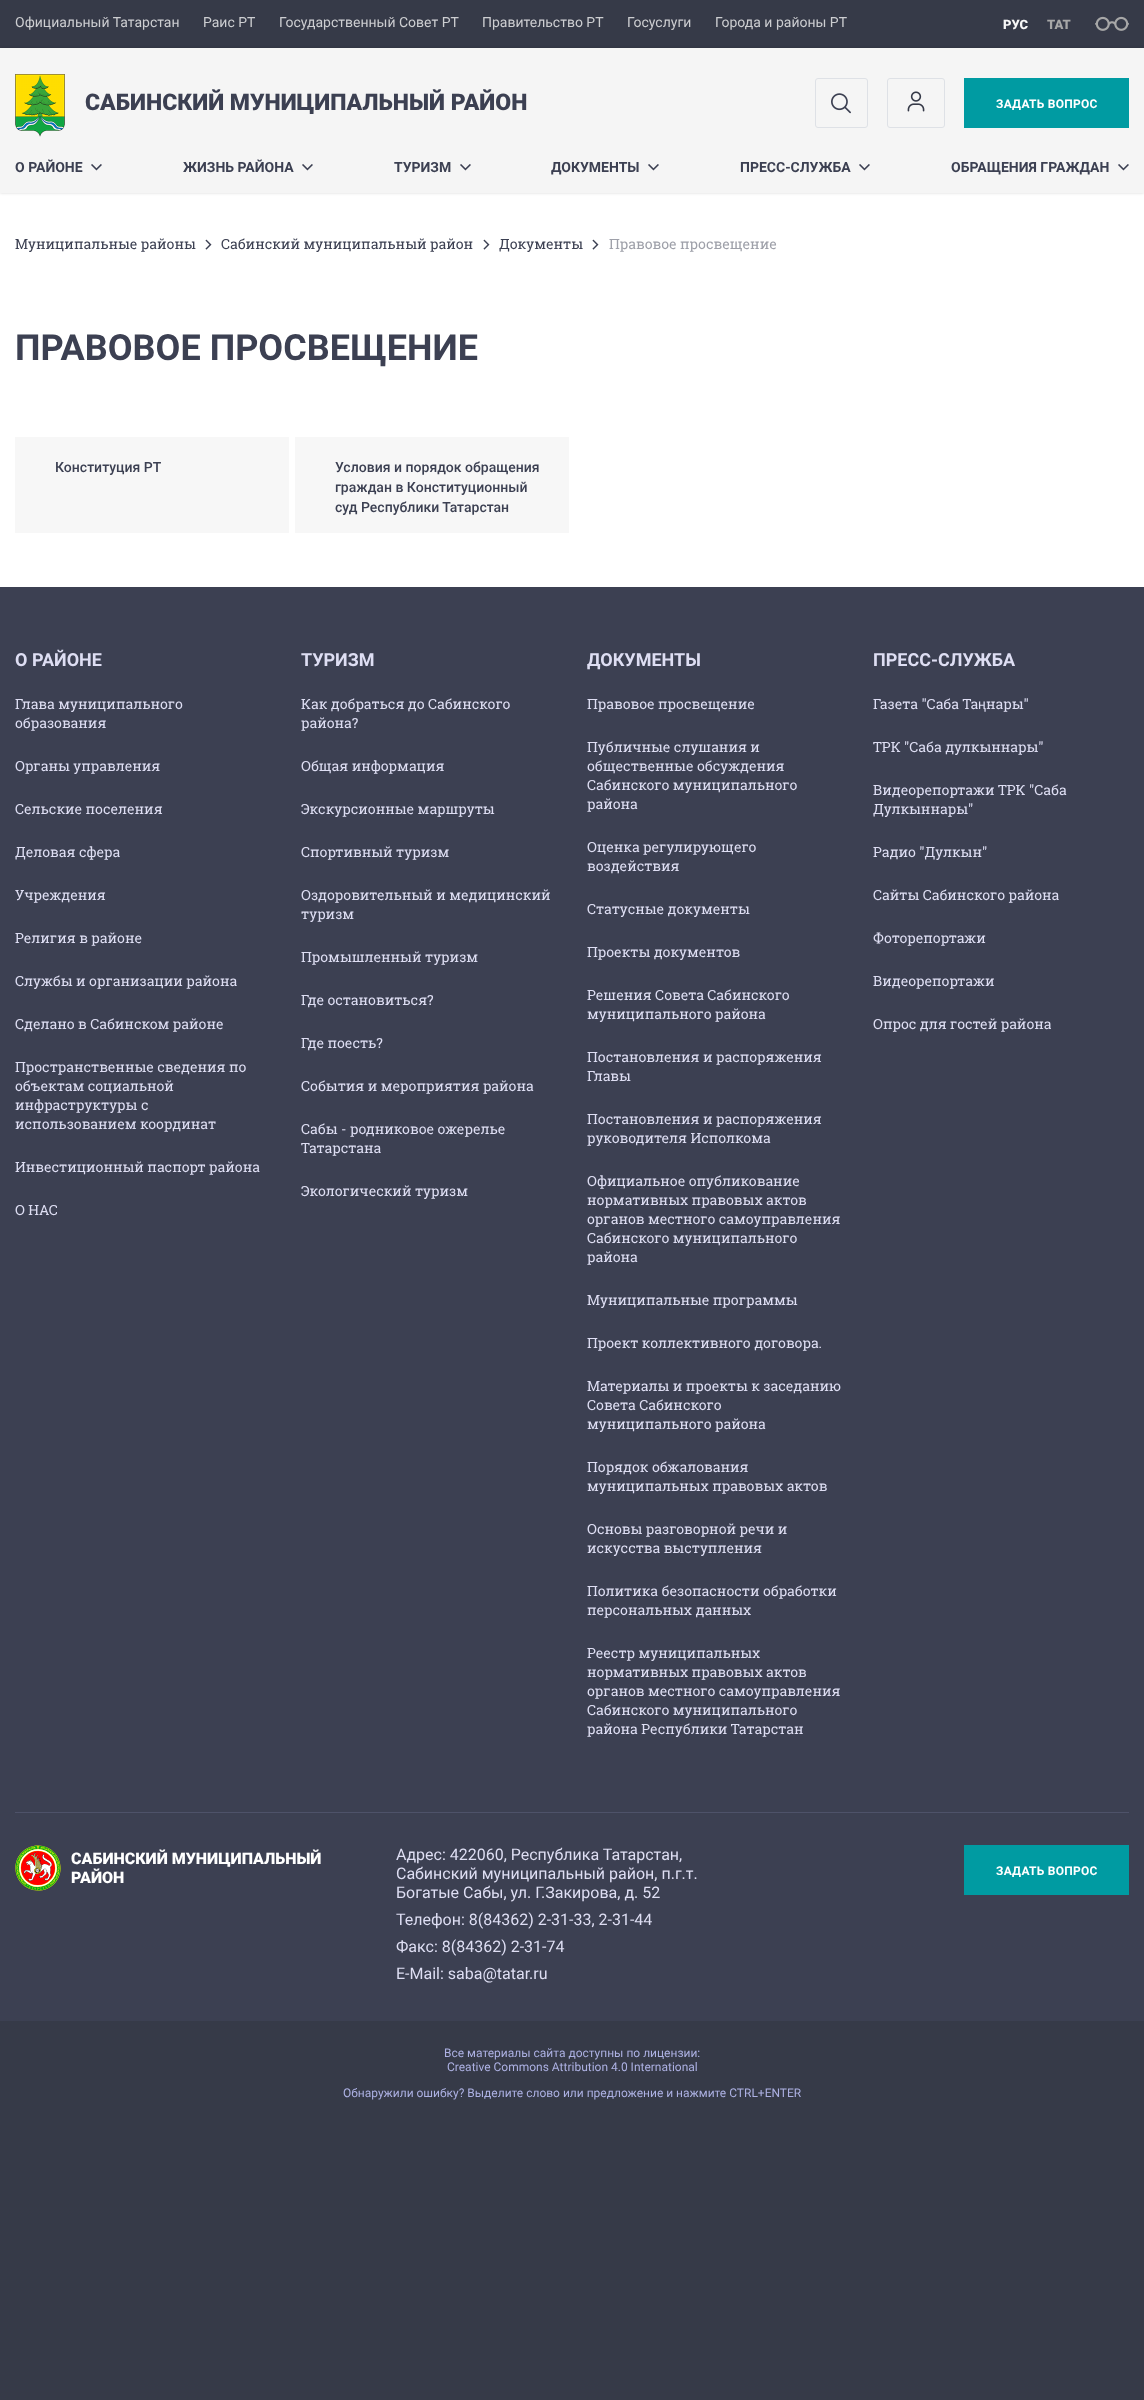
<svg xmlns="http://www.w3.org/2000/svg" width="1144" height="2400">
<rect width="100%" height="100%" fill="#363a48"/>
<text x="15" y="27" style="font-family:Roboto;font-size:14px;fill:#cdced1">Официальный Татарстан</text>
<text x="203" y="27" style="font-family:Roboto;font-size:14px;fill:#cdced1">Раис РТ</text>
<text x="279" y="27" style="font-family:Roboto;font-size:14px;fill:#cdced1">Государственный Совет РТ</text>
<text x="482" y="27" style="font-family:Roboto;font-size:14px;fill:#cdced1">Правительство РТ</text>
<text x="627" y="27" style="font-family:Roboto;font-size:14px;fill:#cdced1">Госуслуги</text>
<text x="715" y="27" style="font-family:Roboto;font-size:14px;fill:#cdced1">Города и районы РТ</text>
<text x="1003" y="29" style="font-family:Roboto;font-size:13px;font-weight:900;fill:#f7f7f7">РУС</text>
<text x="1047" y="29" style="font-family:Roboto;font-size:13px;font-weight:900;fill:#a7a7a7">ТАТ</text>
<image x="1095" y="16" width="34" height="15" href="media/1.png"/>
<rect y="193" width="1144" height="394" fill="#fff"/>
<rect y="48" width="1144" height="145" fill="#00000029" filter="blur(1.5px)"/>
<rect y="48" width="1144" height="145" fill="#f5f5f5"/>
<image x="15" y="74" width="50" height="63" href="media/2.png"/>
<text x="85" y="110" style="font-family:Roboto;font-size:23px;font-weight:900;fill:#3c4052">САБИНСКИЙ МУНИЦИПАЛЬНЫЙ РАЙОН</text>
<rect x="815.5" y="78.5" width="52" height="49" rx="2.5" fill="none" stroke="#dee1e6"/>
<image x="831" y="93" width="20" height="21" href="media/3.png"/>
<rect x="887.5" y="78.5" width="57" height="49" rx="2.5" fill="none" stroke="#dee1e6"/>
<image x="907" y="91" width="18" height="21" href="media/4.png"/>
<rect x="964" y="78" width="165" height="50" fill="#009ba2"/>
<text x="996" y="108" style="font-family:Roboto;font-size:12px;font-weight:bold;letter-spacing:0.25px;fill:#fff">ЗАДАТЬ ВОПРОС</text>
<text x="15" y="172" style="font-family:Roboto;font-size:14px;font-weight:bold;fill:#3c4052">О РАЙОНЕ</text>
<image x="91" y="164" width="11" height="7" href="media/5.png"/>
<text x="183" y="172" style="font-family:Roboto;font-size:14px;font-weight:bold;fill:#3c4052">ЖИЗНЬ РАЙОНА</text>
<image x="302" y="164" width="11" height="7" href="media/5.png"/>
<text x="394" y="172" style="font-family:Roboto;font-size:14px;font-weight:bold;fill:#3c4052">ТУРИЗМ</text>
<image x="460" y="164" width="11" height="7" href="media/5.png"/>
<text x="551" y="172" style="font-family:Roboto;font-size:14px;font-weight:bold;fill:#3c4052">ДОКУМЕНТЫ</text>
<image x="648" y="164" width="11" height="7" href="media/5.png"/>
<text x="740" y="172" style="font-family:Roboto;font-size:14px;font-weight:bold;fill:#3c4052">ПРЕСС-СЛУЖБА</text>
<image x="859" y="164" width="11" height="7" href="media/5.png"/>
<text x="951" y="172" style="font-family:Roboto;font-size:14px;font-weight:bold;fill:#3c4052">ОБРАЩЕНИЯ ГРАЖДАН</text>
<image x="1118" y="164" width="11" height="7" href="media/5.png"/>
<text x="15" y="249" style="font-family:Roboto Slab;font-size:14px;fill:#3c4052">Mуниципальные районы</text>
<image x="205" y="239" width="7" height="11" href="media/6.png"/>
<text x="221" y="249" style="font-family:Roboto Slab;font-size:14px;fill:#3c4052">Сабинский муниципальный район</text>
<image x="483" y="239" width="7" height="11" href="media/6.png"/>
<text x="499" y="249" style="font-family:Roboto Slab;font-size:14px;fill:#3c4052">Документы</text>
<image x="592" y="239" width="7" height="11" href="media/6.png"/>
<text x="609" y="249" style="font-family:Roboto Slab;font-size:14px;fill:#9ea0a9">Правовое просвещение</text>
<text x="15" y="360" style="font-family:Roboto;font-size:36px;font-weight:bold;fill:#3c4052">ПРАВОВОЕ ПРОСВЕЩЕНИЕ</text>
<rect x="15" y="437" width="274" height="96" fill="#f7f7f7"/>
<text x="55" y="472" style="font-family:Roboto;font-size:14px;font-weight:500;fill:#3c4052">Конституция РТ</text>
<rect x="295" y="437" width="274" height="96" fill="#f7f7f7"/>
<text x="335" y="472" style="font-family:Roboto;font-size:14px;font-weight:500;fill:#3c4052">Условия и порядок обращения</text>
<text x="335" y="492" style="font-family:Roboto;font-size:14px;font-weight:500;fill:#3c4052">граждан в Конституционный</text>
<text x="335" y="512" style="font-family:Roboto;font-size:14px;font-weight:500;fill:#3c4052">суд Республики Татарстан</text>
<rect y="587" width="1144" height="1434" fill="#3c4052"/>
<rect x="15" y="1812" width="1114" height="1" fill="#4e5269"/>
<text x="15" y="666" style="font-family:Roboto;font-size:18px;font-weight:bold;fill:#dedef3">О РАЙОНЕ</text>
<text x="15" y="709" style="font-family:Roboto Slab;font-size:14px;fill:#dedef3">Глава муниципального</text>
<text x="15" y="728" style="font-family:Roboto Slab;font-size:14px;fill:#dedef3">образования</text>
<text x="15" y="771" style="font-family:Roboto Slab;font-size:14px;fill:#dedef3">Органы управления</text>
<text x="15" y="814" style="font-family:Roboto Slab;font-size:14px;fill:#dedef3">Сельские поселения</text>
<text x="15" y="857" style="font-family:Roboto Slab;font-size:14px;fill:#dedef3">Деловая сфера</text>
<text x="15" y="900" style="font-family:Roboto Slab;font-size:14px;fill:#dedef3">Учреждения</text>
<text x="15" y="943" style="font-family:Roboto Slab;font-size:14px;fill:#dedef3">Религия в районе</text>
<text x="15" y="986" style="font-family:Roboto Slab;font-size:14px;fill:#dedef3">Службы и организации района</text>
<text x="15" y="1029" style="font-family:Roboto Slab;font-size:14px;fill:#dedef3">Сделано в Сабинском районе</text>
<text x="15" y="1072" style="font-family:Roboto Slab;font-size:14px;fill:#dedef3">Пространственные сведения по</text>
<text x="15" y="1091" style="font-family:Roboto Slab;font-size:14px;fill:#dedef3">объектам социальной</text>
<text x="15" y="1110" style="font-family:Roboto Slab;font-size:14px;fill:#dedef3">инфраструктуры с</text>
<text x="15" y="1129" style="font-family:Roboto Slab;font-size:14px;fill:#dedef3">использованием координат</text>
<text x="15" y="1172" style="font-family:Roboto Slab;font-size:14px;fill:#dedef3">Инвестиционный паспорт района</text>
<text x="15" y="1215" style="font-family:Roboto Slab;font-size:14px;fill:#dedef3">О НАС</text>
<text x="301" y="666" style="font-family:Roboto;font-size:18px;font-weight:bold;fill:#dedef3">ТУРИЗМ</text>
<text x="301" y="709" style="font-family:Roboto Slab;font-size:14px;fill:#dedef3">Как добраться до Сабинского</text>
<text x="301" y="728" style="font-family:Roboto Slab;font-size:14px;fill:#dedef3">района?</text>
<text x="301" y="771" style="font-family:Roboto Slab;font-size:14px;fill:#dedef3">Общая информация</text>
<text x="301" y="814" style="font-family:Roboto Slab;font-size:14px;fill:#dedef3">Экскурсионные маршруты</text>
<text x="301" y="857" style="font-family:Roboto Slab;font-size:14px;fill:#dedef3">Спортивный туризм</text>
<text x="301" y="900" style="font-family:Roboto Slab;font-size:14px;fill:#dedef3">Оздоровительный и медицинский</text>
<text x="301" y="919" style="font-family:Roboto Slab;font-size:14px;fill:#dedef3">туризм</text>
<text x="301" y="962" style="font-family:Roboto Slab;font-size:14px;fill:#dedef3">Промышленный туризм</text>
<text x="301" y="1005" style="font-family:Roboto Slab;font-size:14px;fill:#dedef3">Где остановиться?</text>
<text x="301" y="1048" style="font-family:Roboto Slab;font-size:14px;fill:#dedef3">Где поесть?</text>
<text x="301" y="1091" style="font-family:Roboto Slab;font-size:14px;fill:#dedef3">События и мероприятия района</text>
<text x="301" y="1134" style="font-family:Roboto Slab;font-size:14px;fill:#dedef3">Сабы - родниковое ожерелье</text>
<text x="301" y="1153" style="font-family:Roboto Slab;font-size:14px;fill:#dedef3">Татарстана</text>
<text x="301" y="1196" style="font-family:Roboto Slab;font-size:14px;fill:#dedef3">Экологический туризм</text>
<text x="587" y="666" style="font-family:Roboto;font-size:18px;font-weight:bold;fill:#dedef3">ДОКУМЕНТЫ</text>
<text x="587" y="709" style="font-family:Roboto Slab;font-size:14px;fill:#dedef3">Правовое просвещение</text>
<text x="587" y="752" style="font-family:Roboto Slab;font-size:14px;fill:#dedef3">Публичные слушания и</text>
<text x="587" y="771" style="font-family:Roboto Slab;font-size:14px;fill:#dedef3">общественные обсуждения</text>
<text x="587" y="790" style="font-family:Roboto Slab;font-size:14px;fill:#dedef3">Сабинского муниципального</text>
<text x="587" y="809" style="font-family:Roboto Slab;font-size:14px;fill:#dedef3">района</text>
<text x="587" y="852" style="font-family:Roboto Slab;font-size:14px;fill:#dedef3">Оценка регулирующего</text>
<text x="587" y="871" style="font-family:Roboto Slab;font-size:14px;fill:#dedef3">воздействия</text>
<text x="587" y="914" style="font-family:Roboto Slab;font-size:14px;fill:#dedef3">Статусные документы</text>
<text x="587" y="957" style="font-family:Roboto Slab;font-size:14px;fill:#dedef3">Проекты документов</text>
<text x="587" y="1000" style="font-family:Roboto Slab;font-size:14px;fill:#dedef3">Решения Совета Сабинского</text>
<text x="587" y="1019" style="font-family:Roboto Slab;font-size:14px;fill:#dedef3">муниципального района</text>
<text x="587" y="1062" style="font-family:Roboto Slab;font-size:14px;fill:#dedef3">Постановления и распоряжения</text>
<text x="587" y="1081" style="font-family:Roboto Slab;font-size:14px;fill:#dedef3">Главы</text>
<text x="587" y="1124" style="font-family:Roboto Slab;font-size:14px;fill:#dedef3">Постановления и распоряжения</text>
<text x="587" y="1143" style="font-family:Roboto Slab;font-size:14px;fill:#dedef3">руководителя Исполкома</text>
<text x="587" y="1186" style="font-family:Roboto Slab;font-size:14px;fill:#dedef3">Официальное опубликование</text>
<text x="587" y="1205" style="font-family:Roboto Slab;font-size:14px;fill:#dedef3">нормативных правовых актов</text>
<text x="587" y="1224" style="font-family:Roboto Slab;font-size:14px;fill:#dedef3">органов местного самоуправления</text>
<text x="587" y="1243" style="font-family:Roboto Slab;font-size:14px;fill:#dedef3">Сабинского муниципального</text>
<text x="587" y="1262" style="font-family:Roboto Slab;font-size:14px;fill:#dedef3">района</text>
<text x="587" y="1305" style="font-family:Roboto Slab;font-size:14px;fill:#dedef3">Муниципальные программы</text>
<text x="587" y="1348" style="font-family:Roboto Slab;font-size:14px;fill:#dedef3">Проект коллективного договора.</text>
<text x="587" y="1391" style="font-family:Roboto Slab;font-size:14px;fill:#dedef3">Материалы и проекты к заседанию</text>
<text x="587" y="1410" style="font-family:Roboto Slab;font-size:14px;fill:#dedef3">Совета Сабинского</text>
<text x="587" y="1429" style="font-family:Roboto Slab;font-size:14px;fill:#dedef3">муниципального района</text>
<text x="587" y="1472" style="font-family:Roboto Slab;font-size:14px;fill:#dedef3">Порядок обжалования</text>
<text x="587" y="1491" style="font-family:Roboto Slab;font-size:14px;fill:#dedef3">муниципальных правовых актов</text>
<text x="587" y="1534" style="font-family:Roboto Slab;font-size:14px;fill:#dedef3">Основы разговорной речи и</text>
<text x="587" y="1553" style="font-family:Roboto Slab;font-size:14px;fill:#dedef3">искусства выступления</text>
<text x="587" y="1596" style="font-family:Roboto Slab;font-size:14px;fill:#dedef3">Политика безопасности обработки</text>
<text x="587" y="1615" style="font-family:Roboto Slab;font-size:14px;fill:#dedef3">персональных данных</text>
<text x="587" y="1658" style="font-family:Roboto Slab;font-size:14px;fill:#dedef3">Реестр муниципальных</text>
<text x="587" y="1677" style="font-family:Roboto Slab;font-size:14px;fill:#dedef3">нормативных правовых актов</text>
<text x="587" y="1696" style="font-family:Roboto Slab;font-size:14px;fill:#dedef3">органов местного самоуправления</text>
<text x="587" y="1715" style="font-family:Roboto Slab;font-size:14px;fill:#dedef3">Сабинского муниципального</text>
<text x="587" y="1734" style="font-family:Roboto Slab;font-size:14px;fill:#dedef3">района Республики Татарстан</text>
<text x="873" y="666" style="font-family:Roboto;font-size:18px;font-weight:bold;fill:#dedef3">ПРЕСС-СЛУЖБА</text>
<text x="873" y="709" style="font-family:Roboto Slab;font-size:14px;fill:#dedef3">Газета "Саба Та</text>
<text x="978" y="709" style="font-family:Liberation Sans;font-size:14px;fill:#dedef3">ң</text>
<text x="986" y="709" style="font-family:Roboto Slab;font-size:14px;fill:#dedef3">нары"</text>
<text x="873" y="752" style="font-family:Roboto Slab;font-size:14px;fill:#dedef3">ТРК "Саба дулкыннары"</text>
<text x="873" y="795" style="font-family:Roboto Slab;font-size:14px;fill:#dedef3">Видеорепортажи ТРК "Саба</text>
<text x="873" y="814" style="font-family:Roboto Slab;font-size:14px;fill:#dedef3">Дулкыннары"</text>
<text x="873" y="857" style="font-family:Roboto Slab;font-size:14px;fill:#dedef3">Радио "Дулкын"</text>
<text x="873" y="900" style="font-family:Roboto Slab;font-size:14px;fill:#dedef3">Сайты Сабинского района</text>
<text x="873" y="943" style="font-family:Roboto Slab;font-size:14px;fill:#dedef3">Фоторепортажи</text>
<text x="873" y="986" style="font-family:Roboto Slab;font-size:14px;fill:#dedef3">Видеорепортажи</text>
<text x="873" y="1029" style="font-family:Roboto Slab;font-size:14px;fill:#dedef3">Опрос для гостей района</text>
<image x="15" y="1845" width="46" height="46" href="media/7.png"/>
<text x="71" y="1864" style="font-family:Roboto;font-size:16px;font-weight:900;fill:#fff">САБИНСКИЙ МУНИЦИПАЛЬНЫЙ</text>
<text x="71" y="1883" style="font-family:Roboto;font-size:16px;font-weight:900;fill:#fff">РАЙОН</text>
<text x="396" y="1860" style="font-family:Roboto;font-size:16px;fill:#dedef3">Адрес: 422060, Республика Татарстан,</text>
<text x="396" y="1879" style="font-family:Roboto;font-size:16px;fill:#dedef3">Сабинский муниципальный район, п.г.т.</text>
<text x="396" y="1898" style="font-family:Roboto;font-size:16px;fill:#dedef3">Богатые Сабы, ул. Г.Закирова, д. 52</text>
<text x="396" y="1925" style="font-family:Roboto;font-size:16px;fill:#dedef3">Телефон: 8(84362) 2-31-33, 2-31-44</text>
<text x="396" y="1952" style="font-family:Roboto;font-size:16px;fill:#dedef3">Факс: 8(84362) 2-31-74</text>
<text x="396" y="1979" style="font-family:Roboto;font-size:16px;fill:#dedef3">E-Mail: saba@tatar.ru</text>
<rect x="964" y="1845" width="165" height="50" fill="#009ba2"/>
<text x="996" y="1875" style="font-family:Roboto;font-size:12px;font-weight:bold;letter-spacing:0.25px;fill:#fff">ЗАДАТЬ ВОПРОС</text>
<text x="444" y="2057" style="font-family:Roboto;font-size:12px;fill:#adb1e3">Все материалы сайта доступны по лицензии:</text>
<text x="447" y="2071" style="font-family:Roboto;font-size:12px;fill:#adb1e3">Creative Commons Attribution 4.0 International</text>
<text x="343" y="2097" style="font-family:Roboto;font-size:12px;fill:#adb1e3">Обнаружили ошибку? Выделите слово или предложение и нажмите CTRL+ENTER</text>
</svg>
